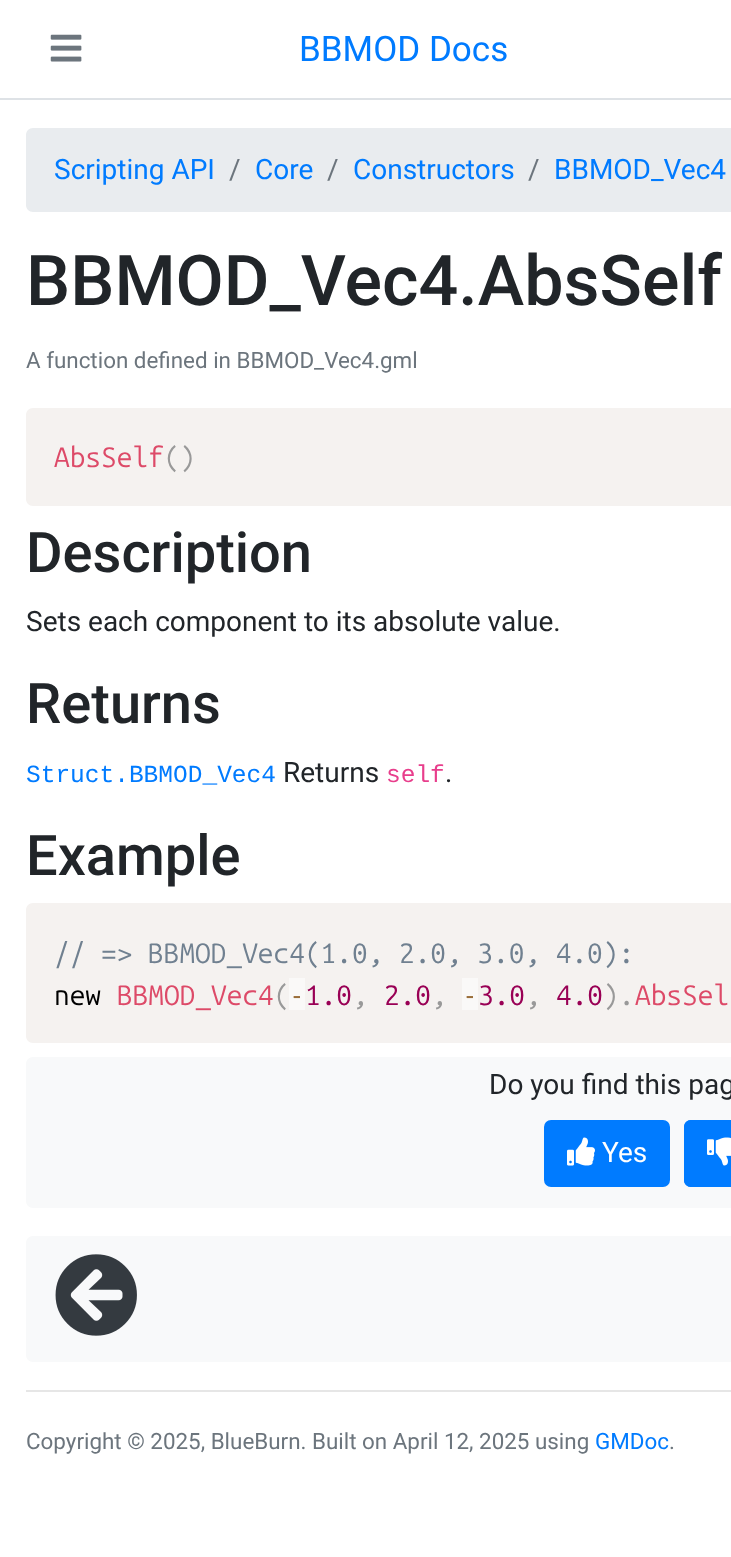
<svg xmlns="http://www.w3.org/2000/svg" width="731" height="1557">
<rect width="100%" height="100%" fill="#fff"/>
<rect y="98" width="731" height="2" fill="#dee2e6"/>
<image x="50" y="34" width="32" height="28" href="media/1.png"/>
<text x="299" y="61" style="font-family:Roboto;font-size:35px;fill:#007bff">BBMOD Docs</text>
<path d="M33 128h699v84h-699c-4 0-7-3-7-7v-70c0-4 3-7 7-7z" fill="#e9ecef"/>
<text x="54" y="179" style="font-family:Roboto;font-size:28px;fill:#007bff">Scripting API</text>
<text x="229" y="179" style="font-family:Roboto;font-size:28px;fill:#6c757d">/</text>
<text x="255" y="179" style="font-family:Roboto;font-size:28px;fill:#007bff">Core</text>
<text x="327" y="179" style="font-family:Roboto;font-size:28px;fill:#6c757d">/</text>
<text x="353" y="179" style="font-family:Roboto;font-size:28px;fill:#007bff">Constructors</text>
<text x="528" y="179" style="font-family:Roboto;font-size:28px;fill:#6c757d">/</text>
<text x="554" y="179" style="font-family:Roboto;font-size:28px;fill:#007bff">BBMOD_Vec4</text>
<text x="26" y="305" style="font-family:Roboto;font-size:70px;font-weight:500;fill:#212529">BBMOD_Vec4.AbsSelf</text>
<text x="26" y="368" style="font-family:Roboto;font-size:22.4px;fill:#6c757d">A function defined in BBMOD_Vec4.gml</text>
<path d="M33 408h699v98h-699c-4 0-7-3-7-7v-84c0-4 3-7 7-7z" fill="#f5f2f0"/>
<text x="54" y="467" style="font-family:Ubuntu Mono;font-size:28px;fill:#dd4a68">AbsSelf</text>
<text x="164" y="467" style="font-family:Ubuntu Mono;font-size:28px;fill:#999">()</text>
<text x="26" y="572" style="font-family:Roboto;font-size:56px;font-weight:500;fill:#212529">Description</text>
<text x="26" y="631" style="font-family:Roboto;font-size:28px;fill:#212529">Sets each component to its absolute value.</text>
<text x="26" y="723" style="font-family:Roboto;font-size:56px;font-weight:500;fill:#212529">Returns</text>
<text x="26" y="782" style="font-family:Liberation Mono;font-size:24.5px;fill:#007bff">Struct.BBMOD_Vec4</text>
<text x="283" y="782" style="font-family:Roboto;font-size:28px;fill:#212529">Returns</text>
<text x="386" y="782" style="font-family:Liberation Mono;font-size:24.5px;fill:#e83e8c">self</text>
<text x="445" y="782" style="font-family:Roboto;font-size:28px;fill:#212529">.</text>
<text x="26" y="875" style="font-family:Roboto;font-size:56px;font-weight:500;fill:#212529">Example</text>
<path d="M33 903h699v140h-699c-4 0-7-3-7-7v-126c0-4 3-7 7-7z" fill="#f5f2f0"/>
<text x="54" y="963" style="font-family:Ubuntu Mono;font-size:28px;fill:#708090">// =&gt; BBMOD_Vec4(1.0, 2.0, 3.0, 4.0):</text>
<text x="54" y="1005" style="font-family:Ubuntu Mono;font-size:28px;fill:#000">new</text>
<text x="117" y="1005" style="font-family:Ubuntu Mono;font-size:28px;fill:#dd4a68">BBMOD_Vec4</text>
<text x="274" y="1005" style="font-family:Ubuntu Mono;font-size:28px;fill:#999">(</text>
<rect x="289" y="978" width="16" height="32" fill="#faf9f8"/>
<text x="289" y="1005" style="font-family:Ubuntu Mono;font-size:28px;fill:#9a6e3a">-</text>
<text x="305" y="1005" style="font-family:Ubuntu Mono;font-size:28px;fill:#905">1.0</text>
<text x="384" y="1005" style="font-family:Ubuntu Mono;font-size:28px;fill:#905">2.0</text>
<rect x="462" y="978" width="16" height="32" fill="#faf9f8"/>
<text x="462" y="1005" style="font-family:Ubuntu Mono;font-size:28px;fill:#9a6e3a">-</text>
<text x="478" y="1005" style="font-family:Ubuntu Mono;font-size:28px;fill:#905">3.0</text>
<text x="556" y="1005" style="font-family:Ubuntu Mono;font-size:28px;fill:#905">4.0</text>
<text x="603" y="1005" style="font-family:Ubuntu Mono;font-size:28px;fill:#999">).</text>
<text x="635" y="1005" style="font-family:Ubuntu Mono;font-size:28px;fill:#dd4a68">AbsSel</text>
<text x="352" y="1005" style="font-family:Ubuntu Mono;font-size:28px;fill:#999">,</text>
<text x="431" y="1005" style="font-family:Ubuntu Mono;font-size:28px;fill:#999">,</text>
<text x="525" y="1005" style="font-family:Ubuntu Mono;font-size:28px;fill:#999">,</text>
<path d="M33 1057h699v151h-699c-4 0-7-3-7-7v-137c0-4 3-7 7-7z" fill="#f8f9fa"/>
<text x="489" y="1094" style="font-family:Roboto;font-size:28px;fill:#212529">Do you find this pag</text>
<rect x="545" y="1121" width="124" height="65" rx="6" fill="#007bff" stroke="#007bff" stroke-width="2"/>
<image x="567" y="1137" width="28" height="29" href="media/2.png"/>
<text x="602" y="1162" style="font-family:Roboto;font-size:28px;fill:#fff">Yes</text>
<path d="M691 1120h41v67h-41c-4 0-7-3-7-7v-53c0-4 3-7 7-7z" fill="#007bff"/>
<rect x="685" y="1121" width="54" height="65" rx="6" fill="none" stroke="#007bff" stroke-width="2"/>
<image x="707" y="1137" width="24" height="29" href="media/3.png"/>
<path d="M33 1236h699v126h-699c-4 0-7-3-7-7v-112c0-4 3-7 7-7z" fill="#f8f9fa"/>
<image x="55" y="1254" width="82" height="82" href="media/4.png"/>
<rect x="26" y="1390" width="705" height="2" fill="#e6e6e6"/>
<text x="26" y="1449" style="font-family:Roboto;font-size:22.4px;fill:#6c757d">Copyright © 2025, BlueBurn. Built on April 12, 2025 using</text>
<text x="595" y="1449" style="font-family:Roboto;font-size:22.4px;fill:#007bff">GMDoc</text>
<text x="669" y="1449" style="font-family:Roboto;font-size:22.4px;fill:#6c757d">.</text>
</svg>
